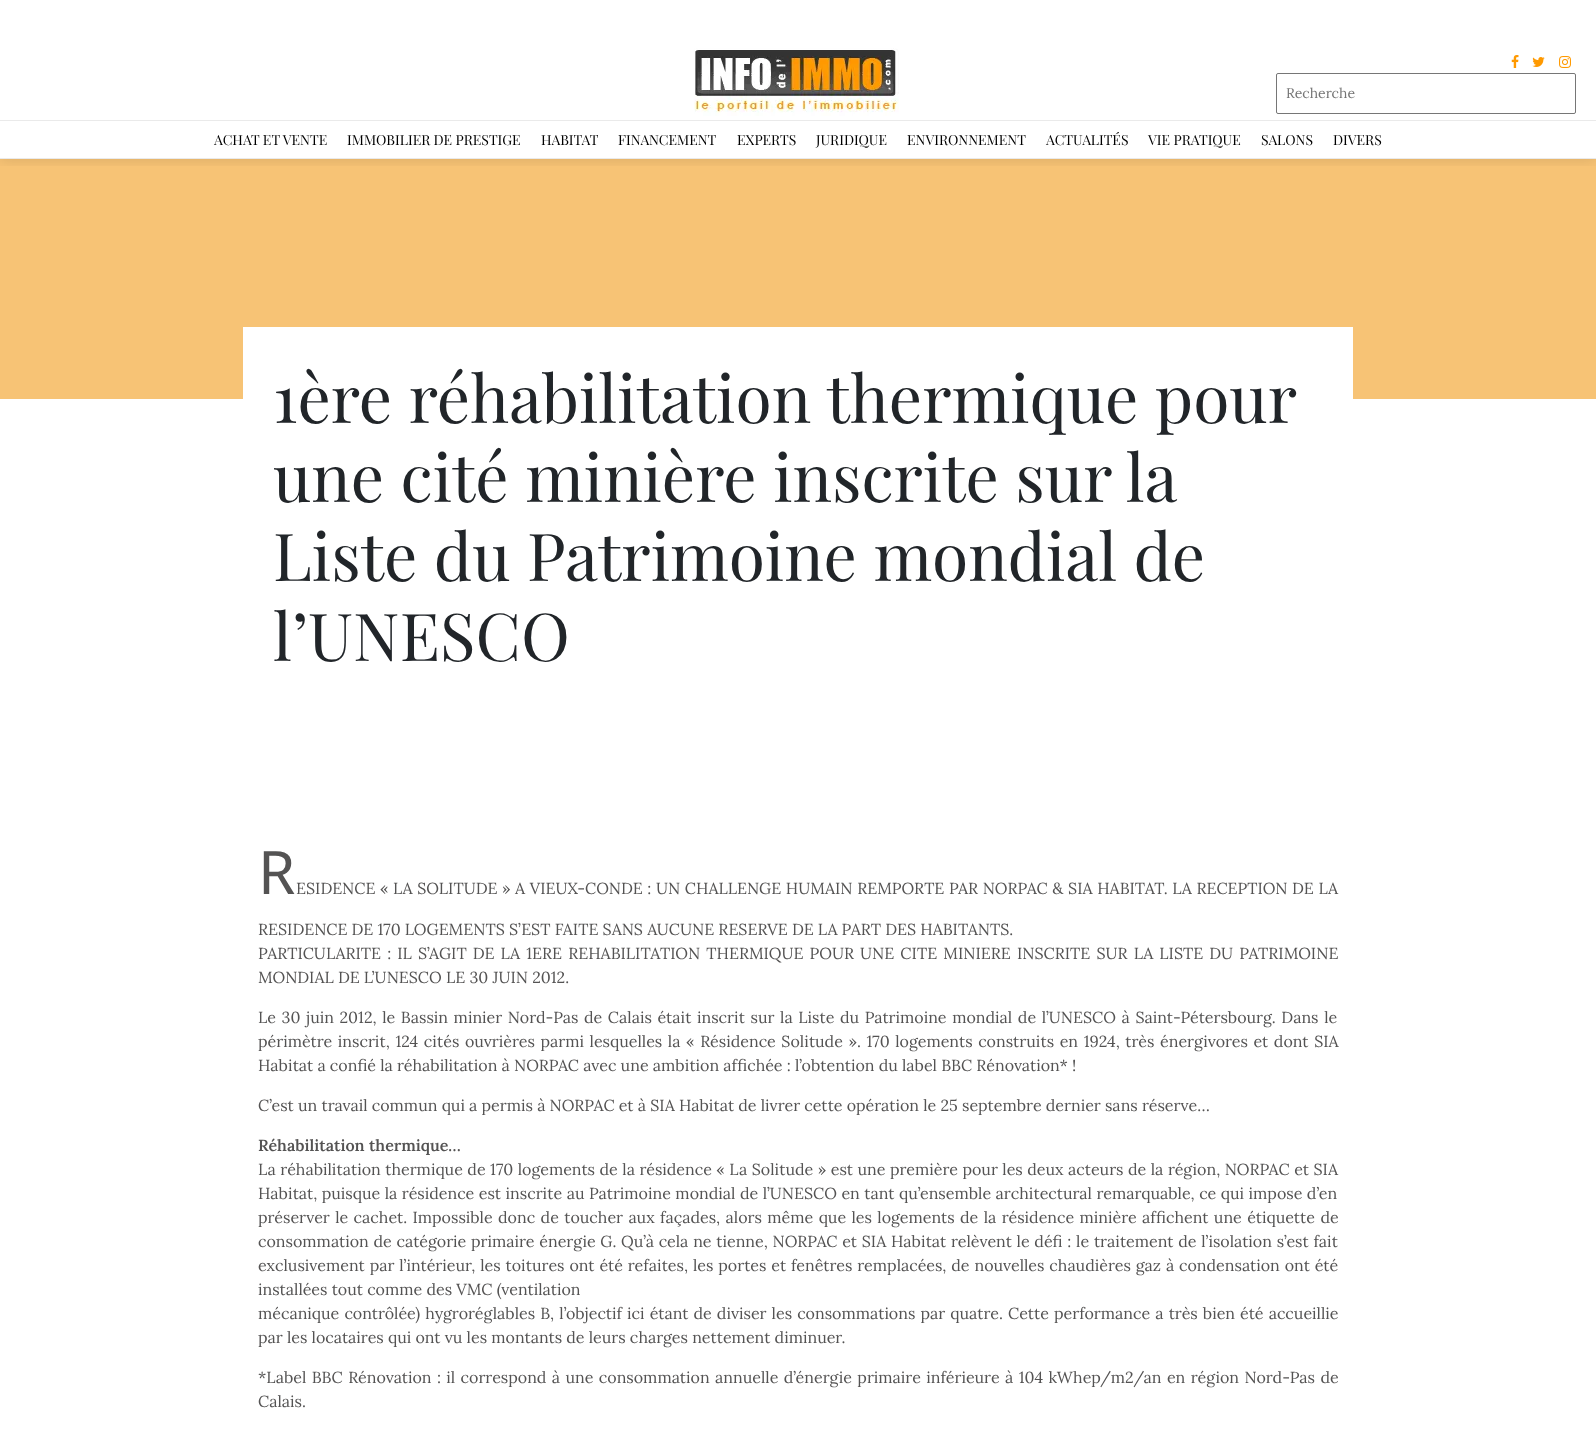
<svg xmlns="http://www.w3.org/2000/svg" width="1596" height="1442">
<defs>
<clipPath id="clip1"><rect x="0" y="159" width="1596" height="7"/></clipPath>
</defs>
<rect width="100%" height="100%" fill="#fff"/>
<rect y="159" width="1596" height="240" fill="#f7c375"/>
<g clip-path="url(#clip1)">
<rect y="2" width="1596" height="159" fill="#0000001a" filter="blur(6.5px)"/>
</g>
<image x="694" y="48" width="205" height="68" href="media/1.png"/>
<image x="1511" y="55" width="8" height="13" href="media/2.png"/>
<image x="1532" y="57" width="13" height="10" href="media/3.png"/>
<image x="1559" y="56" width="12" height="12" href="media/4.png"/>
<rect x="1276.5" y="73.5" width="299" height="40" rx="1.5" fill="none" stroke="#767676"/>
<text x="1286" y="98" style="font-family:Lora;font-size:14px;fill:#757575">Recherche</text>
<rect y="120" width="1596" height="1" fill="#eaeaea"/>
<rect y="158" width="1596" height="1" fill="#eaeaea"/>
<text x="214" y="145" style="font-family:Playfair Display;font-size:14px;fill:#000">ACHAT ET VENTE</text>
<text x="347" y="145" style="font-family:Playfair Display;font-size:14px;fill:#000">IMMOBILIER DE PRESTIGE</text>
<text x="541" y="145" style="font-family:Playfair Display;font-size:14px;fill:#000">HABITAT</text>
<text x="618" y="145" style="font-family:Playfair Display;font-size:14px;fill:#000">FINANCEMENT</text>
<text x="737" y="145" style="font-family:Playfair Display;font-size:14px;fill:#000">EXPERTS</text>
<text x="816" y="145" style="font-family:Playfair Display;font-size:14px;fill:#000">JURIDIQUE</text>
<text x="907" y="145" style="font-family:Playfair Display;font-size:14px;fill:#000">ENVIRONNEMENT</text>
<text x="1046" y="145" style="font-family:Playfair Display;font-size:14px;fill:#000">ACTUALITÉS</text>
<text x="1148" y="145" style="font-family:Playfair Display;font-size:14px;fill:#000">VIE PRATIQUE</text>
<text x="1261" y="145" style="font-family:Playfair Display;font-size:14px;fill:#000">SALONS</text>
<text x="1333" y="145" style="font-family:Playfair Display;font-size:14px;fill:#000">DIVERS</text>
<rect x="243" y="327" width="1110" height="72" fill="#fff"/>
<text x="273" y="423" style="font-family:Playfair Display;font-size:66px;fill:#212529">1ère réhabilitation thermique pour</text>
<text x="273" y="502" style="font-family:Playfair Display;font-size:66px;fill:#212529">une cité minière inscrite sur la</text>
<text x="273" y="581" style="font-family:Playfair Display;font-size:66px;fill:#212529">Liste du Patrimoine mondial de</text>
<text x="273" y="661" style="font-family:Playfair Display;font-size:66px;fill:#212529">l’UNESCO</text>
<text x="258" y="894" style="font-family:Noto Sans;font-size:60px;fill:#545353">R</text>
<text x="296" y="894" word-spacing="0.4" style="font-family:Lora;font-size:16px;fill:#545353">ESIDENCE « LA SOLITUDE » A VIEUX-CONDE : UN CHALLENGE HUMAIN REMPORTE PAR NORPAC &amp; SIA HABITAT. LA RECEPTION DE LA</text>
<text x="258" y="935" style="font-family:Lora;font-size:16px;fill:#545353">RESIDENCE DE 170 LOGEMENTS S’EST FAITE SANS AUCUNE RESERVE DE LA PART DES HABITANTS.</text>
<text x="258" y="959" word-spacing="1.9" style="font-family:Lora;font-size:16px;fill:#545353">PARTICULARITE : IL S’AGIT DE LA 1ERE REHABILITATION THERMIQUE POUR UNE CITE MINIERE INSCRITE SUR LA LISTE DU PATRIMOINE</text>
<text x="258" y="983" style="font-family:Lora;font-size:16px;fill:#545353">MONDIAL DE L’UNESCO LE 30 JUIN 2012.</text>
<text x="258" y="1023" word-spacing="1.4" style="font-family:Lora;font-size:16px;fill:#545353">Le 30 juin 2012, le Bassin minier Nord-Pas de Calais était inscrit sur la Liste du Patrimoine mondial de l’UNESCO à Saint-Pétersbourg. Dans le</text>
<text x="258" y="1047" word-spacing="1.4" style="font-family:Lora;font-size:16px;fill:#545353">périmètre inscrit, 124 cités ouvrières parmi lesquelles la « Résidence Solitude ». 170 logements construits en 1924, très énergivores et dont SIA</text>
<text x="258" y="1071" style="font-family:Lora;font-size:16px;fill:#545353">Habitat a confié la réhabilitation à NORPAC avec une ambition affichée : l’obtention du label BBC Rénovation* !</text>
<text x="258" y="1111" style="font-family:Lora;font-size:16px;fill:#545353">C’est un travail commun qui a permis à NORPAC et à SIA Habitat de livrer cette opération le 25 septembre dernier sans réserve…</text>
<text x="258" y="1151" style="font-family:Lora;font-size:16px;font-weight:600;fill:#545353">Réhabilitation thermique…</text>
<text x="258" y="1175" word-spacing="0.3" style="font-family:Lora;font-size:16px;fill:#545353">La réhabilitation thermique de 170 logements de la résidence « La Solitude » est une première pour les deux acteurs de la région, NORPAC et SIA</text>
<text x="258" y="1199" word-spacing="0.3" style="font-family:Lora;font-size:16px;fill:#545353">Habitat, puisque la résidence est inscrite au Patrimoine mondial de l’UNESCO en tant qu’ensemble architectural remarquable, ce qui impose d’en</text>
<text x="258" y="1223" word-spacing="1.2" style="font-family:Lora;font-size:16px;fill:#545353">préserver le cachet. Impossible donc de toucher aux façades, alors même que les logements de la résidence minière affichent une étiquette de</text>
<text x="258" y="1247" word-spacing="0.55" style="font-family:Lora;font-size:16px;fill:#545353">consommation de catégorie primaire énergie G. Qu’à cela ne tienne, NORPAC et SIA Habitat relèvent le défi : le traitement de l’isolation s’est fait</text>
<text x="258" y="1271" word-spacing="0.7" style="font-family:Lora;font-size:16px;fill:#545353">exclusivement par l’intérieur, les toitures ont été refaites, les portes et fenêtres remplacées, de nouvelles chaudières gaz à condensation ont été</text>
<text x="258" y="1295" style="font-family:Lora;font-size:16px;fill:#545353">installées tout comme des VMC (ventilation</text>
<text x="258" y="1319" word-spacing="0.9" style="font-family:Lora;font-size:16px;fill:#545353">mécanique contrôlée) hygroréglables B, l’objectif ici étant de diviser les consommations par quatre. Cette performance a très bien été accueillie</text>
<text x="258" y="1343" style="font-family:Lora;font-size:16px;fill:#545353">par les locataires qui ont vu les montants de leurs charges nettement diminuer.</text>
<text x="258" y="1383" word-spacing="1.2" style="font-family:Lora;font-size:16px;fill:#545353">*Label BBC Rénovation : il correspond à une consommation annuelle d’énergie primaire inférieure à 104 kWhep/m2/an en région Nord-Pas de</text>
<text x="258" y="1407" style="font-family:Lora;font-size:16px;fill:#545353">Calais.</text>
</svg>
